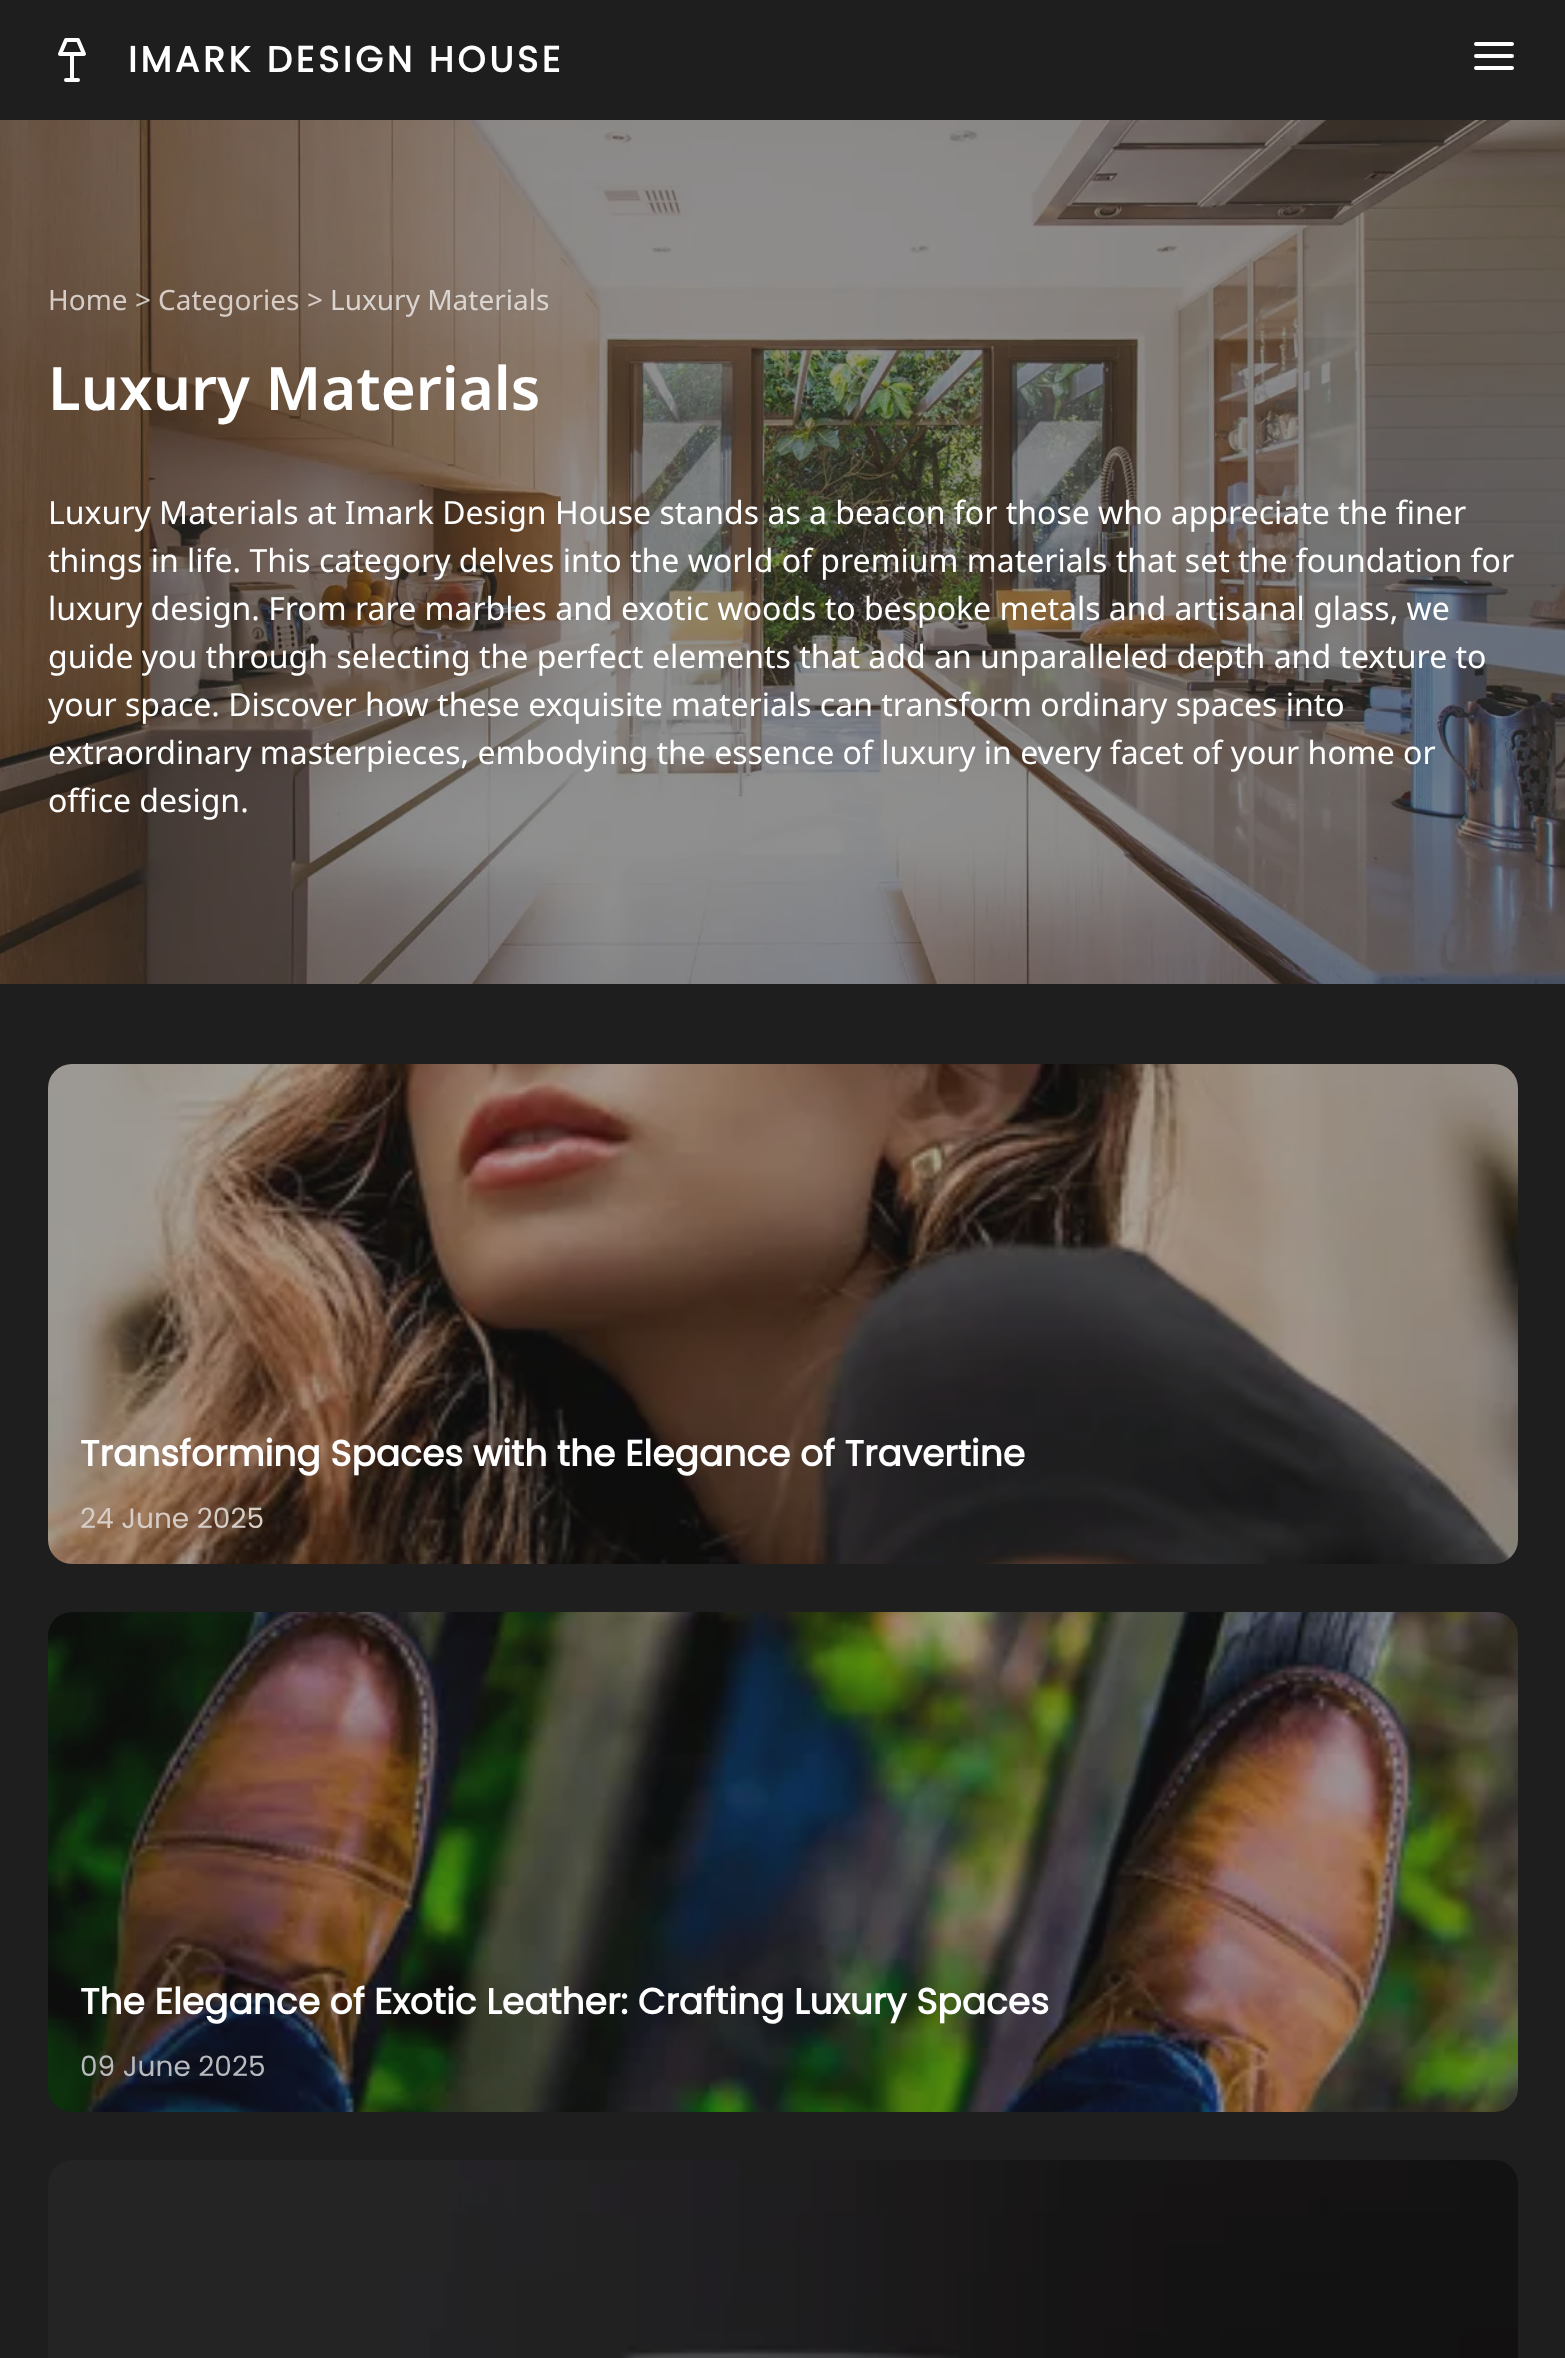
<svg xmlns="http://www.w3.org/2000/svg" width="1565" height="2358">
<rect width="100%" height="100%" fill="#1e1e1e"/>
<path d="M66 40h12l6 14h-24zm6 14v26m-6 0h12" fill="none" stroke="#fff" stroke-width="4" stroke-linecap="round" stroke-linejoin="round"/>
<text x="128" y="72" style="font-family:Poppins;font-size:36px;font-weight:bold;letter-spacing:3.6px;fill:#fff">IMARK DESIGN HOUSE</text>
<path d="M1476 44h36m-36 12h36m-36 12h36" fill="none" stroke="#fff" stroke-width="4" stroke-linecap="round" stroke-linejoin="round"/>
<image x="0" y="120" width="1565" height="864" href="media/1.png"/>
<text x="48" y="310" style="font-family:Noto Sans;font-size:28px;fill:#d7cdc7">Home</text>
<text x="135" y="310" style="font-family:Noto Sans;font-size:28px;fill:#cec7c1">&gt;</text>
<text x="158" y="310" style="font-family:Noto Sans;font-size:28px;fill:#d7cdc7">Categories</text>
<text x="307" y="310" style="font-family:Noto Sans;font-size:28px;fill:#d7cdc7">&gt;</text>
<text x="330" y="310" style="font-family:Noto Sans;font-size:28px;fill:#dad5d0">Luxury Materials</text>
<text x="48" y="410" style="font-family:Noto Sans;font-size:60px;font-weight:600;fill:#fff">Luxury Materials</text>
<text x="48" y="524" style="font-family:Noto Sans;font-size:32px;fill:#fff">Luxury Materials at Imark Design House stands as a beacon for those who appreciate the finer</text>
<text x="48" y="572" style="font-family:Noto Sans;font-size:32px;fill:#fff">things in life. This category delves into the world of premium materials that set the foundation for</text>
<text x="48" y="620" style="font-family:Noto Sans;font-size:32px;fill:#fff">luxury design. From rare marbles and exotic woods to bespoke metals and artisanal glass, we</text>
<text x="48" y="668" style="font-family:Noto Sans;font-size:32px;fill:#fff">guide you through selecting the perfect elements that add an unparalleled depth and texture to</text>
<text x="48" y="716" style="font-family:Noto Sans;font-size:32px;fill:#fff">your space. Discover how these exquisite materials can transform ordinary spaces into</text>
<text x="48" y="764" style="font-family:Noto Sans;font-size:32px;fill:#fff">extraordinary masterpieces, embodying the essence of luxury in every facet of your home or</text>
<text x="48" y="812" style="font-family:Noto Sans;font-size:32px;fill:#fff">office design.</text>
<image x="48" y="1064" width="1470" height="500" href="media/2.png"/>
<text x="80" y="1466" style="font-family:Poppins;font-size:36px;font-weight:bold;fill:#fff">Transforming Spaces with the Elegance of Travertine</text>
<text x="80" y="1528" style="font-family:Poppins;font-size:28px;fill:#d7cdc7">24 June 2025</text>
<image x="48" y="1612" width="1470" height="500" href="media/3.png"/>
<text x="80" y="2014" style="font-family:Poppins;font-size:36px;font-weight:bold;fill:#fff">The Elegance of Exotic Leather: Crafting Luxury Spaces</text>
<text x="80" y="2076" style="font-family:Poppins;font-size:28px;fill:#b8babd">09 June 2025</text>
<image x="48" y="2160" width="1470" height="198" href="media/4.png"/>
</svg>
